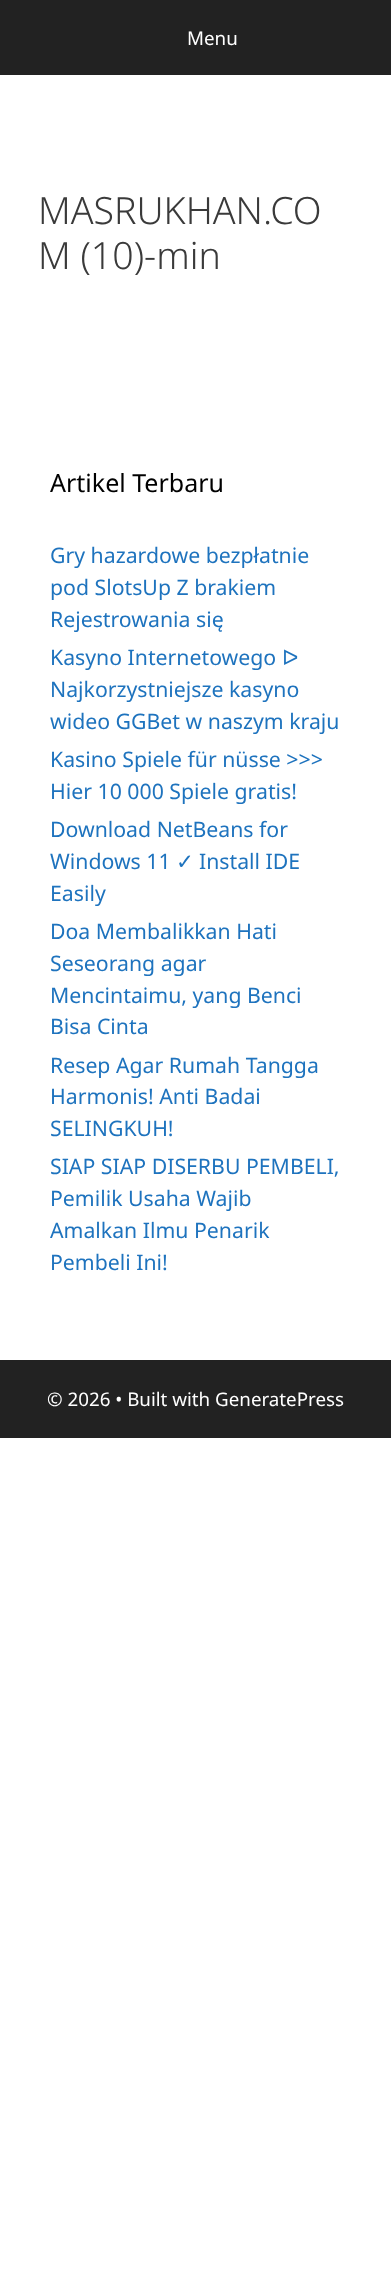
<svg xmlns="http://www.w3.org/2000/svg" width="391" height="2274">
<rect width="100%" height="100%" fill="#fff"/>
<rect width="391" height="75" fill="#222"/>
<text x="187" y="45" style="font-family:Noto Sans;font-size:18.75px;fill:#fff">Menu</text>
<text x="38" y="224" style="font-family:Noto Sans;font-size:37.5px;font-weight:300;fill:#3a3a3a">MASRUKHAN.CO</text>
<text x="38" y="269" style="font-family:Noto Sans;font-size:37.5px;font-weight:300;fill:#3a3a3a">M (10)-min</text>
<text x="50" y="492" style="font-family:Noto Sans;font-size:25px;fill:#000">Artikel Terbaru</text>
<text x="50" y="563" style="font-family:Noto Sans;font-size:21.25px;fill:#1e73be">Gry hazardowe bezpłatnie</text>
<text x="50" y="595" style="font-family:Noto Sans;font-size:21.25px;fill:#1e73be">pod SlotsUp Z brakiem</text>
<text x="50" y="627" style="font-family:Noto Sans;font-size:21.25px;fill:#1e73be">Rejestrowania się</text>
<text x="50" y="665" style="font-family:Noto Sans;font-size:21.25px;fill:#1e73be">Kasyno Internetowego</text>
<text x="282" y="665" style="font-family:DejaVu Sans;font-size:21.25px;fill:#1e73be">ᐅ</text>
<text x="50" y="697" style="font-family:Noto Sans;font-size:21.25px;fill:#1e73be">Najkorzystniejsze kasyno</text>
<text x="50" y="729" style="font-family:Noto Sans;font-size:21.25px;fill:#1e73be">wideo GGBet w naszym kraju</text>
<text x="50" y="767" style="font-family:Noto Sans;font-size:21.25px;fill:#1e73be">Kasino Spiele für nüsse &gt;&gt;&gt;</text>
<text x="50" y="799" style="font-family:Noto Sans;font-size:21.25px;fill:#1e73be">Hier 10 000 Spiele gratis!</text>
<text x="50" y="837" style="font-family:Noto Sans;font-size:21.25px;fill:#1e73be">Download NetBeans for</text>
<text x="50" y="869" style="font-family:Noto Sans;font-size:21.25px;fill:#1e73be">Windows 11</text>
<text x="176" y="869" style="font-family:DejaVu Sans;font-size:21.25px;fill:#1e73be">✓</text>
<text x="199" y="869" style="font-family:Noto Sans;font-size:21.25px;fill:#1e73be">Install IDE</text>
<text x="50" y="901" style="font-family:Noto Sans;font-size:21.25px;fill:#1e73be">Easily</text>
<text x="50" y="939" style="font-family:Noto Sans;font-size:21.25px;fill:#1e73be">Doa Membalikkan Hati</text>
<text x="50" y="971" style="font-family:Noto Sans;font-size:21.25px;fill:#1e73be">Seseorang agar</text>
<text x="50" y="1003" style="font-family:Noto Sans;font-size:21.25px;fill:#1e73be">Mencintaimu, yang Benci</text>
<text x="50" y="1034" style="font-family:Noto Sans;font-size:21.25px;fill:#1e73be">Bisa Cinta</text>
<text x="50" y="1073" style="font-family:Noto Sans;font-size:21.25px;fill:#1e73be">Resep Agar Rumah Tangga</text>
<text x="50" y="1104" style="font-family:Noto Sans;font-size:21.25px;fill:#1e73be">Harmonis! Anti Badai</text>
<text x="50" y="1136" style="font-family:Noto Sans;font-size:21.25px;fill:#1e73be">SELINGKUH!</text>
<text x="50" y="1174" style="font-family:Noto Sans;font-size:21.25px;fill:#1e73be">SIAP SIAP DISERBU PEMBELI,</text>
<text x="50" y="1206" style="font-family:Noto Sans;font-size:21.25px;fill:#1e73be">Pemilik Usaha Wajib</text>
<text x="50" y="1238" style="font-family:Noto Sans;font-size:21.25px;fill:#1e73be">Amalkan Ilmu Penarik</text>
<text x="50" y="1270" style="font-family:Noto Sans;font-size:21.25px;fill:#1e73be">Pembeli Ini!</text>
<rect y="1360" width="391" height="78" fill="#222"/>
<text x="47" y="1406" style="font-family:Noto Sans;font-size:18.75px;fill:#fff">© 2026 • Built with GeneratePress</text>
</svg>
